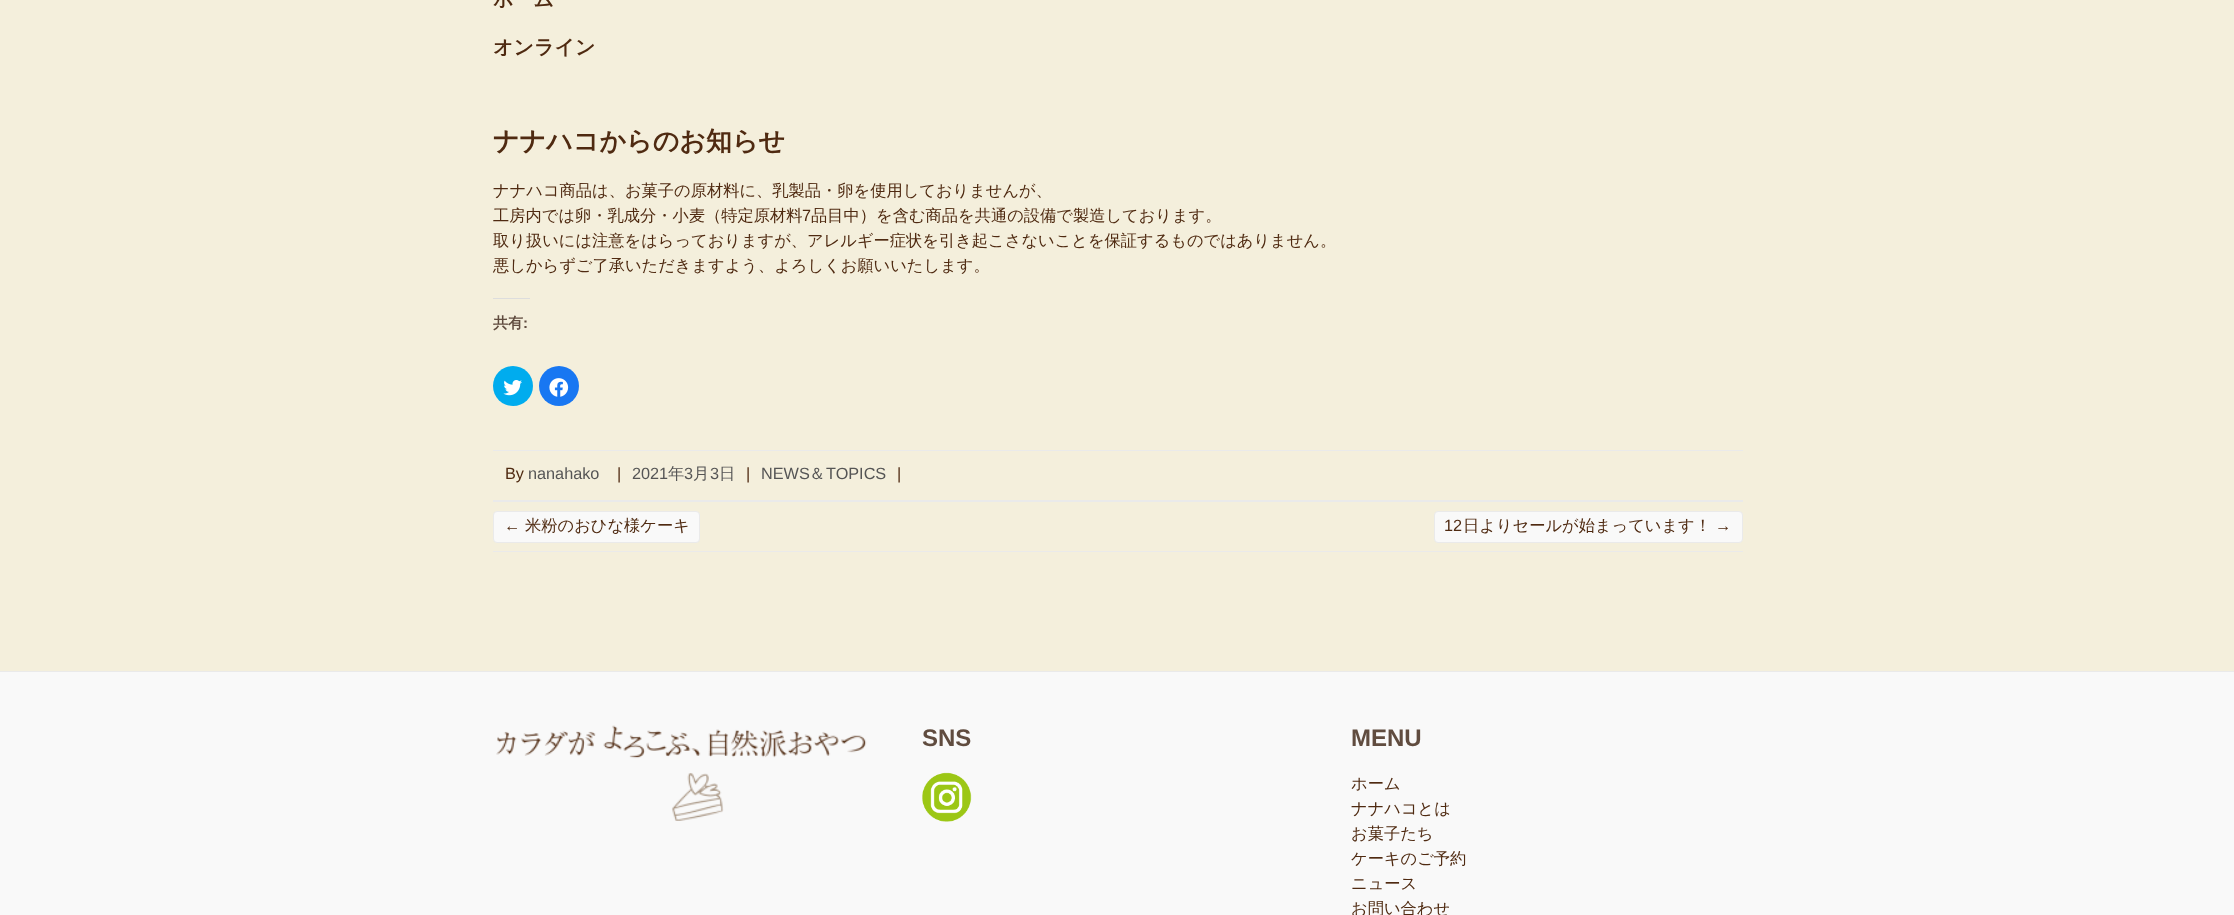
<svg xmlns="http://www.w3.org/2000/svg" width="2234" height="915">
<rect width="100%" height="100%" fill="#f4efdc"/>
<text x="493" y="6" style="font-family:WenQuanYi Zen Hei;font-size:20px;font-weight:bold;fill:#4f2a11">ホーム</text>
<text x="493" y="54" style="font-family:WenQuanYi Zen Hei;font-size:20px;font-weight:bold;fill:#4f2a11">オンライン</text>
<text x="493" y="150" style="font-family:WenQuanYi Zen Hei;font-size:26px;font-weight:bold;fill:#4f2a11">ナナハコからのお知らせ</text>
<text x="493" y="196" style="font-family:WenQuanYi Zen Hei;font-size:16.25px;font-weight:500;fill:#4f2a11">ナナハコ商品は、お菓子の原材料に、乳製品・卵を使用しておりませんが、</text>
<text x="493" y="221" style="font-family:WenQuanYi Zen Hei;font-size:16.25px;font-weight:500;fill:#4f2a11">工房内では卵・乳成分・小麦（特定原材料</text>
<text x="802" y="221" style="font-family:Liberation Sans;font-size:16.25px;fill:#4f2a11">7</text>
<text x="811" y="221" style="font-family:WenQuanYi Zen Hei;font-size:16.25px;font-weight:500;fill:#4f2a11">品目中）を含む商品を共通の設備で製造しております。</text>
<text x="493" y="246" style="font-family:WenQuanYi Zen Hei;font-size:16.25px;font-weight:500;fill:#4f2a11">取り扱いには注意をはらっておりますが、アレルギー症状を引き起こさないことを保証するものではありません。</text>
<text x="493" y="271" style="font-family:WenQuanYi Zen Hei;font-size:16.25px;font-weight:500;fill:#4f2a11">悪しからずご了承いただきますよう、よろしくお願いいたします。</text>
<rect x="493" y="298" width="37" height="1" fill="#ddd"/>
<text x="493" y="328" style="font-family:WenQuanYi Zen Hei;font-size:15px;font-weight:bold;fill:#604c3f">共有</text>
<text x="523" y="328" style="font-family:Liberation Sans;font-size:15px;font-weight:bold;fill:#604c3f">:</text>
<circle cx="513" cy="386" r="20" fill="#00acee"/>
<image x="503" y="380" width="19" height="16" href="media/1.png"/>
<circle cx="559" cy="386" r="20" fill="#1877f2"/>
<image x="549" y="378" width="20" height="19" href="media/2.png"/>
<rect x="493" y="450" width="1250" height="1" fill="#eaeaea"/>
<rect x="493" y="500" width="1250" height="2" fill="#eaeaea"/>
<text x="505" y="479" style="font-family:Liberation Sans;font-size:16.25px;fill:#4f2a11">By</text>
<text x="528" y="479" style="font-family:Liberation Sans;font-size:16.25px;fill:#555">nanahako</text>
<text x="617" y="479" style="font-family:Liberation Sans;font-size:16.25px;fill:#4f2a11">|</text>
<text x="632" y="479" style="font-family:Liberation Sans;font-size:16.25px;fill:#555">2021</text>
<text x="668" y="479" style="font-family:WenQuanYi Zen Hei;font-size:16.25px;font-weight:500;fill:#555">年</text>
<text x="684" y="479" style="font-family:Liberation Sans;font-size:16.25px;fill:#555">3</text>
<text x="693" y="479" style="font-family:WenQuanYi Zen Hei;font-size:16.25px;font-weight:500;fill:#555">月</text>
<text x="710" y="479" style="font-family:Liberation Sans;font-size:16.25px;fill:#555">3</text>
<text x="719" y="479" style="font-family:WenQuanYi Zen Hei;font-size:16.25px;font-weight:500;fill:#555">日</text>
<text x="746" y="479" style="font-family:Liberation Sans;font-size:16.25px;fill:#4f2a11">|</text>
<text x="761" y="479" style="font-family:Liberation Sans;font-size:16.25px;fill:#555">NEWS</text>
<text x="809" y="479" style="font-family:WenQuanYi Zen Hei;font-size:16.25px;font-weight:500;fill:#555">＆</text>
<text x="826" y="479" style="font-family:Liberation Sans;font-size:16.25px;fill:#555">TOPICS</text>
<text x="897" y="479" style="font-family:Liberation Sans;font-size:16.25px;fill:#4f2a11">|</text>
<rect x="493" y="551" width="1250" height="1" fill="#eaeaea"/>
<rect x="493.5" y="511.5" width="206" height="31" rx="3.5" fill="#f9f9f9" stroke="#eaeaea"/>
<text x="504" y="531" style="font-family:Liberation Sans;font-size:16.25px;fill:#4f2a11">←</text>
<text x="525" y="531" style="font-family:WenQuanYi Zen Hei;font-size:16.25px;font-weight:500;fill:#4f2a11">米粉のおひな様ケーキ</text>
<rect x="1434.5" y="511.5" width="308" height="31" rx="3.5" fill="#f9f9f9" stroke="#eaeaea"/>
<text x="1444" y="531" style="font-family:Liberation Sans;font-size:16.25px;fill:#4f2a11">12</text>
<text x="1463" y="531" style="font-family:WenQuanYi Zen Hei;font-size:16.25px;font-weight:500;fill:#4f2a11">日よりセールが始まっています！</text>
<text x="1715" y="531" style="font-family:Liberation Sans;font-size:16.25px;fill:#4f2a11">→</text>
<rect y="672" width="2234" height="243" fill="#f9f9f9"/>
<rect y="671" width="2234" height="1" fill="#eaeaea"/>
<image x="496" y="725" width="371" height="96" href="media/3.png"/>
<text x="922" y="746" style="font-family:Liberation Sans;font-size:24px;font-weight:bold;fill:#604c3f">SNS</text>
<image x="922" y="772" width="50" height="50" href="media/4.png"/>
<text x="1351" y="746" style="font-family:Liberation Sans;font-size:24px;font-weight:bold;fill:#604c3f">MENU</text>
<text x="1351" y="789" style="font-family:WenQuanYi Zen Hei;font-size:16.25px;font-weight:500;fill:#4f2a11">ホーム</text>
<text x="1351" y="814" style="font-family:WenQuanYi Zen Hei;font-size:16.25px;font-weight:500;fill:#4f2a11">ナナハコとは</text>
<text x="1351" y="839" style="font-family:WenQuanYi Zen Hei;font-size:16.25px;font-weight:500;fill:#4f2a11">お菓子たち</text>
<text x="1351" y="864" style="font-family:WenQuanYi Zen Hei;font-size:16.25px;font-weight:500;fill:#4f2a11">ケーキのご予約</text>
<text x="1351" y="889" style="font-family:WenQuanYi Zen Hei;font-size:16.25px;font-weight:500;fill:#4f2a11">ニュース</text>
<text x="1351" y="914" style="font-family:WenQuanYi Zen Hei;font-size:16.25px;font-weight:500;fill:#4f2a11">お問い合わせ</text>
</svg>
